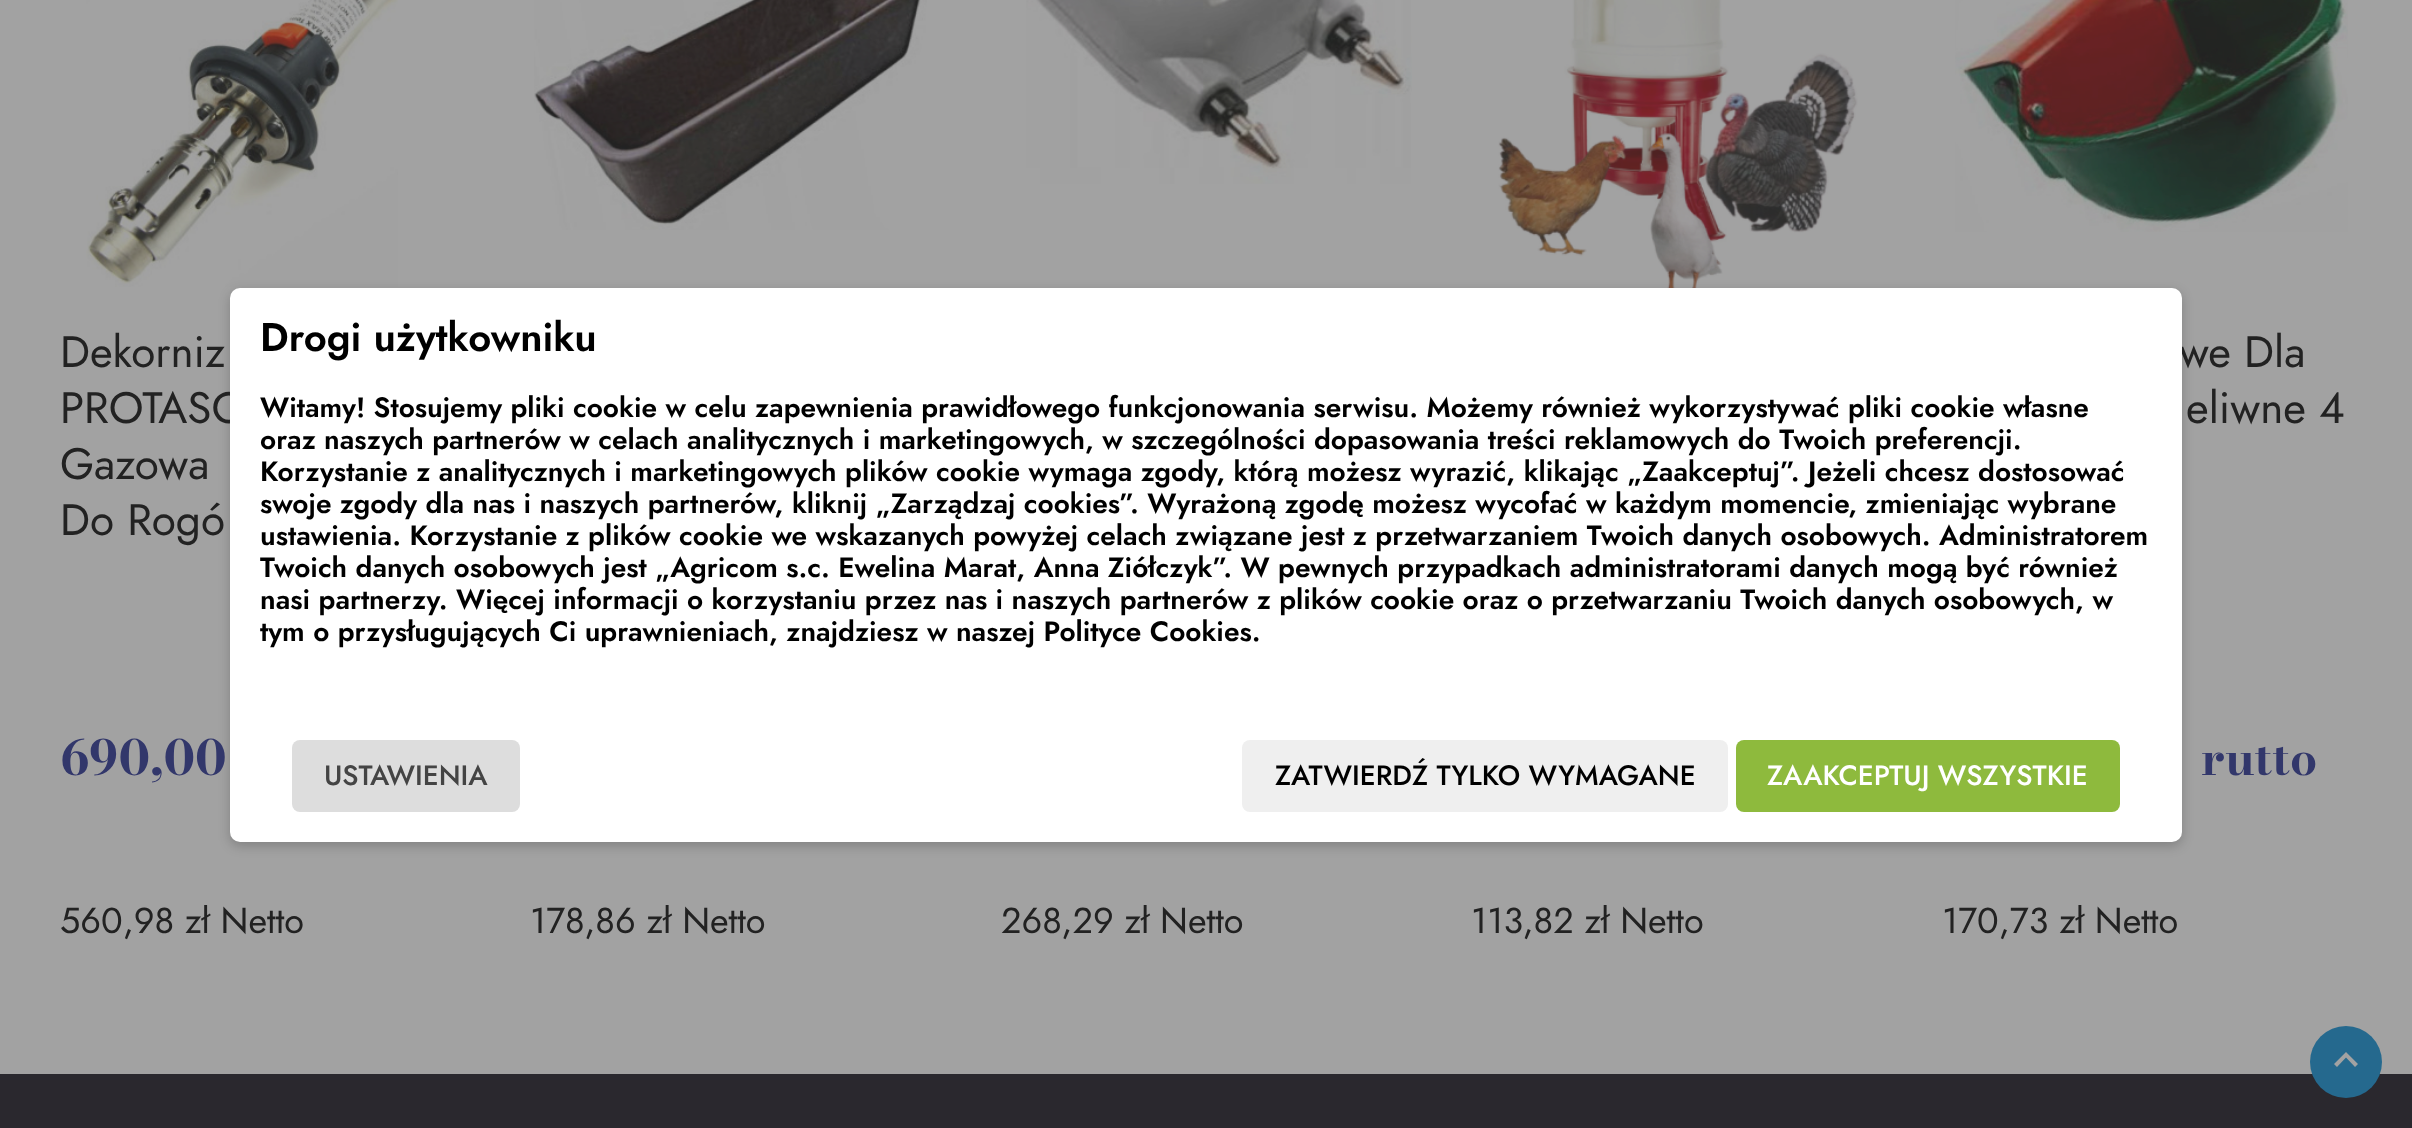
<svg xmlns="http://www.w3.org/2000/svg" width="2412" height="1128">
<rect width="100%" height="100%" fill="#a2a2a2"/>
<image x="86" y="0" width="312" height="287" href="media/1.png"/>
<image x="1498" y="0" width="360" height="288" href="media/4.png"/>
<rect x="230" y="292" width="1952" height="554" rx="10" fill="#00000033" filter="blur(6px)"/>
<text x="60" y="423" style="font-family:Jost;font-size:44px;fill:#222">PROTASO</text>
<text x="2179" y="367" style="font-family:Jost;font-size:44px;fill:#222">we Dla</text>
<rect x="230" y="288" width="1952" height="554" rx="10" fill="#fff"/>
<text x="260" y="351" style="font-family:Jost;font-size:40px;font-weight:600;fill:#000">Drogi użytkowniku</text>
<text x="260" y="417" style="font-family:Jost;font-size:28px;font-weight:600;fill:#000">Witamy! Stosujemy pliki cookie w celu zapewnienia prawidłowego funkcjonowania serwisu. Możemy również wykorzystywać pliki cookie własne</text>
<text x="260" y="449" style="font-family:Jost;font-size:28px;font-weight:600;fill:#000">oraz naszych partnerów w celach analitycznych i marketingowych, w szczególności dopasowania treści reklamowych do Twoich preferencji.</text>
<text x="260" y="481" style="font-family:Jost;font-size:28px;font-weight:600;fill:#000">Korzystanie z analitycznych i marketingowych plików cookie wymaga zgody, którą możesz wyrazić, klikając „Zaakceptuj”. Jeżeli chcesz dostosować</text>
<text x="260" y="513" style="font-family:Jost;font-size:28px;font-weight:600;fill:#000">swoje zgody dla nas i naszych partnerów, kliknij „Zarządzaj cookies”. Wyrażoną zgodę możesz wycofać w każdym momencie, zmieniając wybrane</text>
<text x="260" y="545" style="font-family:Jost;font-size:28px;font-weight:600;fill:#000">ustawienia. Korzystanie z plików cookie we wskazanych powyżej celach związane jest z przetwarzaniem Twoich danych osobowych. Administratorem</text>
<text x="260" y="577" style="font-family:Jost;font-size:28px;font-weight:600;fill:#000">Twoich danych osobowych jest „Agricom s.c. Ewelina Marat, Anna Ziółczyk”. W pewnych przypadkach administratorami danych mogą być również</text>
<text x="260" y="609" style="font-family:Jost;font-size:28px;font-weight:600;fill:#000">nasi partnerzy. Więcej informacji o korzystaniu przez nas i naszych partnerów z plików cookie oraz o przetwarzaniu Twoich danych osobowych, w</text>
<text x="260" y="641" style="font-family:Jost;font-size:28px;font-weight:600;fill:#000">tym o przysługujących Ci uprawnieniach, znajdziesz w naszej Polityce Cookies.</text>
<rect x="292" y="740" width="228" height="72" rx="8" fill="#ddd"/>
<text x="324" y="785" style="font-family:Jost;font-size:28px;font-weight:500;fill:#444">USTAWIENIA</text>
<rect x="1242" y="740" width="486" height="72" rx="8" fill="#efefef"/>
<text x="1275" y="785" style="font-family:Jost;font-size:28px;font-weight:500;fill:#000">ZATWIERDŹ TYLKO WYMAGANE</text>
<rect x="1736" y="740" width="384" height="72" rx="8" fill="#8eba3d"/>
<text x="1767" y="785" style="font-family:Jost;font-size:28px;font-weight:500;fill:#fff">ZAAKCEPTUJ WSZYSTKIE</text>
<text x="60" y="367" style="font-family:Jost;font-size:44px;fill:#222">Dekorniz</text>
<text x="60" y="479" style="font-family:Jost;font-size:44px;fill:#222">Gazowa</text>
<text x="60" y="535" style="font-family:Jost;font-size:44px;fill:#222">Do Rogó</text>
<text x="60" y="775" style="font-family:Bodoni Moda;font-size:48px;font-weight:bold;fill:#32376b">690,00</text>
<text x="60" y="933" style="font-family:Jost;font-size:36px;fill:#222">560,98 zł Netto</text>
<image x="534" y="0" width="393" height="230" href="media/2.png"/>
<text x="530" y="933" style="font-family:Jost;font-size:36px;fill:#222">178,86 zł Netto</text>
<image x="1026" y="0" width="386" height="184" href="media/3.png"/>
<text x="1001" y="933" style="font-family:Jost;font-size:36px;fill:#222">268,29 zł Netto</text>
<text x="1471" y="933" style="font-family:Jost;font-size:36px;fill:#222">113,82 zł Netto</text>
<image x="1955" y="0" width="393" height="232" href="media/5.png"/>
<text x="2186" y="423" style="font-family:Jost;font-size:44px;fill:#222">eliwne 4</text>
<text x="2201" y="775" style="font-family:Bodoni Moda;font-size:48px;font-weight:bold;fill:#32376b">rutto</text>
<text x="1942" y="933" style="font-family:Jost;font-size:36px;fill:#222">170,73 zł Netto</text>
<rect y="1074" width="2412" height="54" fill="#2a282e"/>
<circle cx="2346" cy="1062" r="36" fill="#25698e"/>
<path d="M2346 1052l12 12l-3 3l-9-9.5l-9 9.5l-3-3z" fill="#a2a2a2"/>
</svg>
